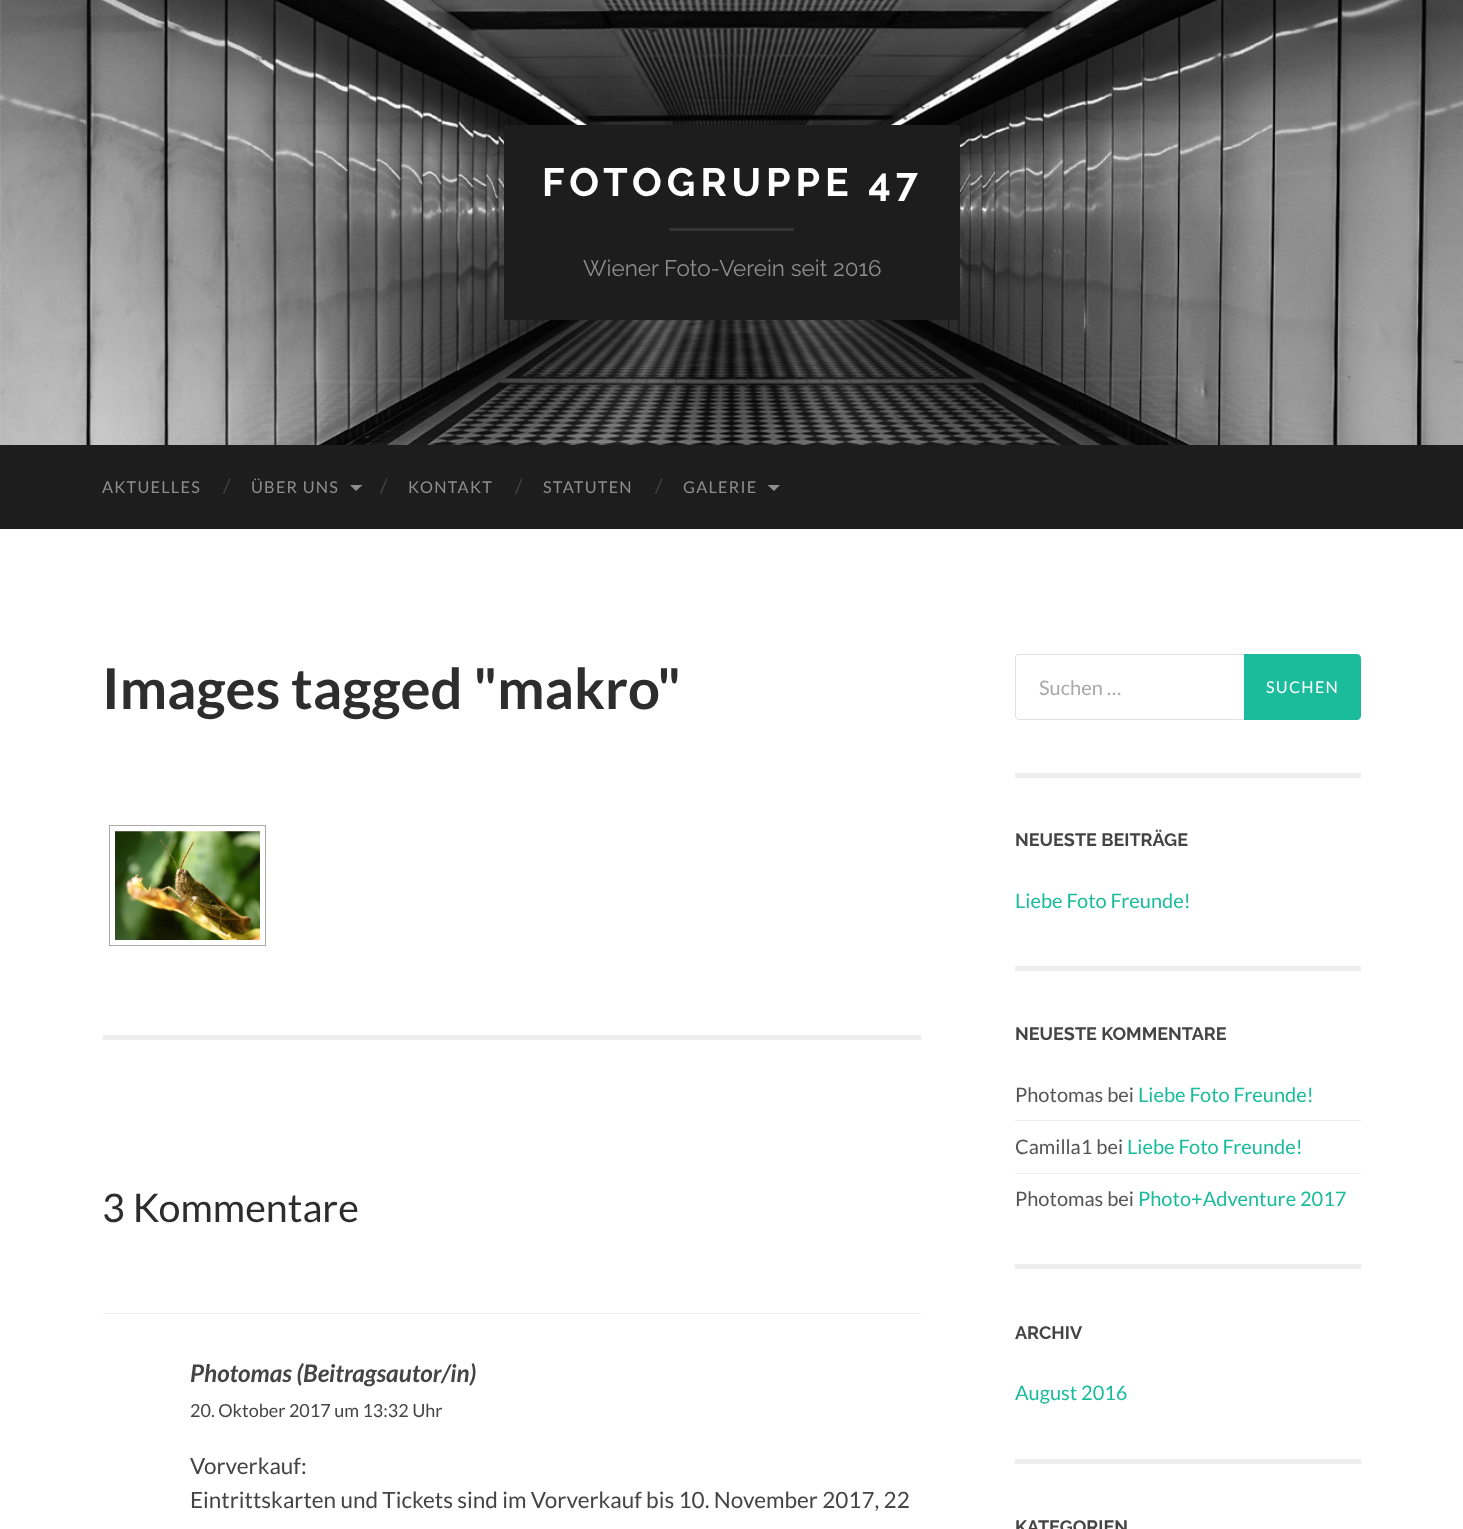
<svg xmlns="http://www.w3.org/2000/svg" width="1463" height="1529">
<rect width="100%" height="100%" fill="#fff"/>
<image x="0" y="0" width="1463" height="445" href="media/1.png"/>
<rect x="504" y="125" width="456" height="195" fill="#1d1d1d"/>
<text x="542" y="196" style="font-family:Raleway;font-size:39.4px;font-weight:100;letter-spacing:5px;fill:#fff">FOTOGRUPPE 47</text>
<rect x="669" y="228" width="125" height="3" fill="#343434"/>
<text x="583" y="276" style="font-family:'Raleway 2';font-size:22.5px;font-weight:100;fill:#8e8e8e">Wiener Foto-Verein seit 2016</text>
<rect y="445" width="1463" height="84" fill="#1d1d1d"/>
<text x="102" y="493" style="font-family:Lato;font-size:16.25px;letter-spacing:1.25px;fill:#8e8e8e">AKTUELLES</text>
<text x="223" y="493" style="font-family:Lato;font-size:20px;fill:#444">/</text>
<text x="251" y="493" style="font-family:Lato;font-size:16.25px;letter-spacing:1.25px;fill:#8e8e8e">ÜBER UNS</text>
<path d="M350 485h12.5l-6.5 6z" fill="#8e8e8e"/>
<text x="380" y="493" style="font-family:Lato;font-size:20px;fill:#444">/</text>
<text x="408" y="493" style="font-family:Lato;font-size:16.25px;letter-spacing:1.25px;fill:#8e8e8e">KONTAKT</text>
<text x="515" y="493" style="font-family:Lato;font-size:20px;fill:#444">/</text>
<text x="543" y="493" style="font-family:Lato;font-size:16.25px;letter-spacing:1.25px;fill:#8e8e8e">STATUTEN</text>
<text x="655" y="493" style="font-family:Lato;font-size:20px;fill:#444">/</text>
<text x="683" y="493" style="font-family:Lato;font-size:16.25px;letter-spacing:1.25px;fill:#8e8e8e">GALERIE</text>
<path d="M767.5 485h12.5l-6 6z" fill="#8e8e8e"/>
<text x="102" y="709" style="font-family:Lato;font-size:56.25px;font-weight:bold;fill:#2d2d2d">Images tagged "makro"</text>
<rect x="109.5" y="825.5" width="156" height="120" fill="none" stroke="#a9a9a9"/>
<image x="115" y="831" width="145" height="109" href="media/2.png"/>
<rect x="103" y="1035" width="818" height="5" fill="#eee"/>
<text x="102" y="1222" style="font-family:Lato;font-size:39.4px;fill:#2d2d2d">3 Kommentare</text>
<rect x="103" y="1313" width="818" height="1" fill="#eee"/>
<text x="190" y="1382" style="font-family:Lato;font-size:24.25px;font-weight:bold;font-style:italic;fill:#444">Photomas (Beitragsautor/in)</text>
<text x="190" y="1417" style="font-family:Lato;font-size:18px;fill:#444">20. Oktober 2017 um 13:32 Uhr</text>
<text x="190" y="1474" style="font-family:Lato;font-size:22.5px;fill:#444">Vorverkauf:</text>
<text x="190" y="1508" style="font-family:Lato;font-size:22.5px;fill:#444">Eintrittskarten und Tickets sind im Vorverkauf bis 10. November 2017, 22</text>
<rect x="1015" y="773" width="346" height="5" fill="#eee"/>
<path d="M1019 654h225v66h-225c-2 0-4-2-4-4v-58c0-3 2-4 4-4zm0 1h225v64h-225c-2 0-3-1-3-3v-58c0-2 1-3 3-3z" fill="#e1e1e3" fill-rule="evenodd"/>
<text x="1039" y="695" style="font-family:Lato;font-size:20px;fill:#a9a9a9">Suchen …</text>
<path d="M1244 654h113c2 0 4 2 4 4v58c0 2-2 4-4 4h-113z" fill="#1abc9c"/>
<text x="1266" y="693" style="font-family:Lato;font-size:16.25px;letter-spacing:1.25px;fill:#fff">SUCHEN</text>
<rect x="1015" y="966" width="346" height="5" fill="#eee"/>
<text x="1015" y="846" style="font-family:Raleway;font-size:18px;font-weight:100;fill:#444">NEUESTE BEITRÄGE</text>
<text x="1015" y="908" style="font-family:Lato;font-size:20px;fill:#1abc9c">Liebe Foto Freunde!</text>
<rect x="1015" y="1264" width="346" height="5" fill="#eee"/>
<text x="1015" y="1040" style="font-family:Raleway;font-size:18px;font-weight:100;fill:#444">NEUESTE KOMMENTARE</text>
<text x="1015" y="1102" style="font-family:Lato;font-size:20px;fill:#555">Photomas bei</text>
<text x="1138" y="1102" style="font-family:Lato;font-size:20px;fill:#1abc9c">Liebe Foto Freunde!</text>
<rect x="1015" y="1120" width="346" height="1" fill="#eee"/>
<text x="1015" y="1154" style="font-family:Lato;font-size:20px;fill:#555">Camilla1 bei</text>
<text x="1127" y="1154" style="font-family:Lato;font-size:20px;fill:#1abc9c">Liebe Foto Freunde!</text>
<rect x="1015" y="1173" width="346" height="1" fill="#eee"/>
<text x="1015" y="1206" style="font-family:Lato;font-size:20px;fill:#555">Photomas bei</text>
<text x="1138" y="1206" style="font-family:Lato;font-size:20px;fill:#1abc9c">Photo+Adventure 2017</text>
<rect x="1015" y="1459" width="346" height="5" fill="#eee"/>
<text x="1015" y="1339" style="font-family:Raleway;font-size:18px;font-weight:100;fill:#444">ARCHIV</text>
<text x="1015" y="1400" style="font-family:Lato;font-size:20px;fill:#1abc9c">August 2016</text>
<text x="1015" y="1533" style="font-family:Raleway;font-size:18px;font-weight:100;fill:#444">KATEGORIEN</text>
</svg>
